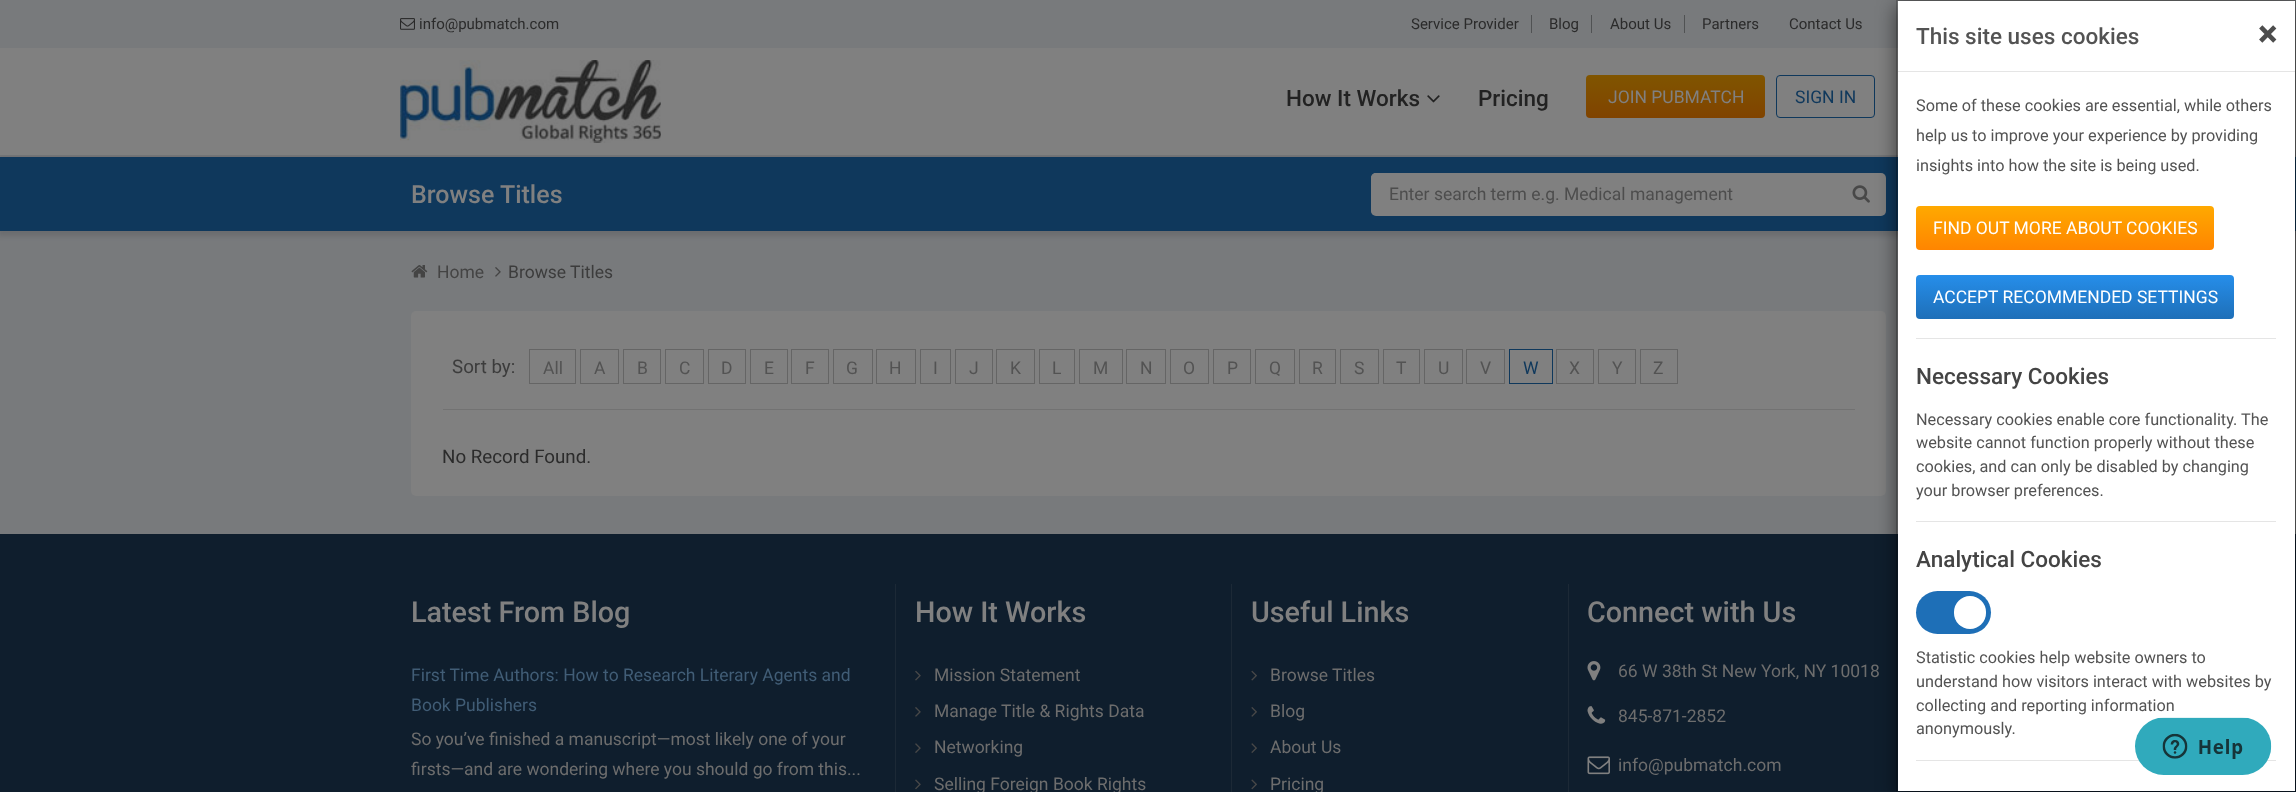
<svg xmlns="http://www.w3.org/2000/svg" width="2296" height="792">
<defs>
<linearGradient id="g1" gradientUnits="userSpaceOnUse" x1="1676" y1="75" x2="1676" y2="118"><stop offset="0" stop-color="#805500"/><stop offset="1" stop-color="#804300"/></linearGradient>
<linearGradient id="g2" gradientUnits="userSpaceOnUse" x1="2065" y1="206" x2="2065" y2="250"><stop offset="0" stop-color="#ffa900"/><stop offset="1" stop-color="#ff8500"/></linearGradient>
<linearGradient id="g3" gradientUnits="userSpaceOnUse" x1="2075" y1="275" x2="2075" y2="319"><stop offset="0" stop-color="#268eea"/><stop offset="1" stop-color="#1e6fb8"/></linearGradient>
</defs>
<rect width="100%" height="100%" fill="#787a7c"/>
<rect x="-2" y="156" width="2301" height="80" fill="#6b6c6f" filter="blur(2.5px)"/>
<rect y="48" width="1898" height="107" fill="#808080"/>
<image x="400" y="18" width="15" height="12" href="media/1.png"/>
<text x="419" y="29" style="font-family:Roboto;font-size:15px;fill:#2b2b2b">info@pubmatch.com</text>
<rect x="1531" y="15" width="1" height="18" fill="#505253"/>
<text x="1411" y="29" style="font-family:Roboto;font-size:15px;fill:#2b2b2b">Service Provider</text>
<rect x="1591" y="15" width="1" height="18" fill="#505253"/>
<text x="1549" y="29" style="font-family:Roboto;font-size:15px;fill:#2b2b2b">Blog</text>
<rect x="1684" y="15" width="1" height="18" fill="#505253"/>
<text x="1610" y="29" style="font-family:Roboto;font-size:15px;fill:#2b2b2b">About Us</text>
<text x="1702" y="29" style="font-family:Roboto;font-size:15px;fill:#2b2b2b">Partners</text>
<text x="1789" y="29" style="font-family:Roboto;font-size:15px;fill:#2b2b2b">Contact Us</text>
<image x="400" y="60" width="261" height="83" href="media/2.png"/>
<text x="1286" y="106" style="font-family:Roboto;font-size:22.5px;font-weight:500;fill:#222">How It Works</text>
<image x="1427" y="95" width="13" height="8" href="media/3.png"/>
<text x="1478" y="106" style="font-family:Roboto;font-size:22.5px;font-weight:500;fill:#222">Pricing</text>
<rect x="1586" y="75" width="179" height="43" rx="4" fill="url(#g1)"/>
<text x="1608" y="103" style="font-family:Roboto;font-size:17.5px;fill:#808080">JOIN PUBMATCH</text>
<rect x="1776.5" y="75.5" width="98" height="42" rx="3.5" fill="none" stroke="#0f385c"/>
<text x="1795" y="103" style="font-family:Roboto;font-size:17.5px;fill:#0f385c">SIGN IN</text>
<rect y="157" width="2296" height="74" fill="#0f385c"/>
<rect x="1371" y="173" width="515" height="43" rx="5" fill="#808080"/>
<image x="1852" y="185" width="18" height="18" href="media/4.png"/>
<rect x="411" y="311" width="1475" height="185" rx="5" fill="#808080"/>
<rect y="534" width="2296" height="258" fill="#0f1e2d"/>
<rect x="1896" y="6" width="400" height="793" fill="#00000080" filter="blur(9.5px)"/>
<rect x="1898" y="1" width="397" height="790" fill="#fff"/>
<rect x="1896.5" y="0.5" width="399" height="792" fill="none" stroke="#00000033"/>
<rect x="1898" y="71" width="397" height="1" fill="#e5e5e5"/>
<text x="1916" y="44" style="font-family:Roboto;font-size:22.5px;font-weight:500;fill:#535353">This site uses cookies</text>
<text x="2258" y="46" style="font-family:Roboto;font-size:35px;font-weight:bold;fill:#4d4d4d">×</text>
<text x="1916" y="111" style="font-family:Roboto;font-size:16.25px;fill:#535353">Some of these cookies are essential, while others</text>
<text x="1916" y="141" style="font-family:Roboto;font-size:16.25px;fill:#535353">help us to improve your experience by providing</text>
<text x="1916" y="171" style="font-family:Roboto;font-size:16.25px;fill:#535353">insights into how the site is being used.</text>
<rect x="1916" y="206" width="298" height="44" rx="4" fill="url(#g2)"/>
<text x="1933" y="234" style="font-family:Roboto;font-size:17.5px;fill:#fff">FIND OUT MORE ABOUT COOKIES</text>
<rect x="1916" y="275" width="318" height="44" rx="4" fill="url(#g3)"/>
<text x="1933" y="303" style="font-family:Roboto;font-size:17.5px;fill:#fff">ACCEPT RECOMMENDED SETTINGS</text>
<rect x="1916" y="338" width="360" height="1" fill="#e5e5e5"/>
<text x="1916" y="384" style="font-family:Roboto;font-size:22.5px;font-weight:500;fill:#444">Necessary Cookies</text>
<text x="1916" y="425" style="font-family:Roboto;font-size:16.25px;fill:#535353">Necessary cookies enable core functionality. The</text>
<text x="1916" y="448" style="font-family:Roboto;font-size:16.25px;fill:#535353">website cannot function properly without these</text>
<text x="1916" y="472" style="font-family:Roboto;font-size:16.25px;fill:#535353">cookies, and can only be disabled by changing</text>
<text x="1916" y="496" style="font-family:Roboto;font-size:16.25px;fill:#535353">your browser preferences.</text>
<rect x="1916" y="521" width="360" height="1" fill="#e5e5e5"/>
<text x="1916" y="567" style="font-family:Roboto;font-size:22.5px;font-weight:500;fill:#444">Analytical Cookies</text>
<rect x="1916" y="591" width="75" height="43" rx="21.5" fill="#1e6fb7"/>
<rect x="1954" y="596" width="32" height="33" rx="16" fill="#fff"/>
<text x="1916" y="663" style="font-family:Roboto;font-size:16.25px;fill:#535353">Statistic cookies help website owners to</text>
<text x="1916" y="687" style="font-family:Roboto;font-size:16.25px;fill:#535353">understand how visitors interact with websites by</text>
<text x="1916" y="711" style="font-family:Roboto;font-size:16.25px;fill:#535353">collecting and reporting information</text>
<text x="1916" y="734" style="font-family:Roboto;font-size:16.25px;fill:#535353">anonymously.</text>
<rect x="1916" y="760" width="360" height="1" fill="#e5e5e5"/>
<text x="411" y="203" style="font-family:Roboto;font-size:25px;font-weight:500;fill:#808080">Browse Titles</text>
<rect x="1371" y="173" width="467" height="42" rx="5" fill="#808080"/>
<text x="1389" y="200" style="font-family:Roboto;font-size:17.5px;fill:#4d4d4d">Enter search term e.g. Medical management</text>
<image x="411" y="265" width="17" height="13" href="media/5.png"/>
<text x="437" y="278" style="font-family:Roboto;font-size:17.5px;fill:#444">Home</text>
<image x="495" y="267" width="6" height="10" href="media/6.png"/>
<text x="508" y="278" style="font-family:Roboto;font-size:17.5px;fill:#3c3c3c">Browse Titles</text>
<rect x="443" y="409" width="1412" height="1" fill="#727272"/>
<text x="452" y="373" style="font-family:Roboto;font-size:18.75px;fill:#3c3c3c">Sort by:</text>
<rect x="529.5" y="349.5" width="46" height="34" fill="none" stroke="#656565"/>
<text x="543" y="374" style="font-family:Roboto;font-size:17.5px;fill:#535353">All</text>
<rect x="580.5" y="349.5" width="38" height="34" fill="none" stroke="#656565"/>
<text x="594" y="374" style="font-family:Roboto;font-size:17.5px;fill:#535353">A</text>
<rect x="623.5" y="349.5" width="37" height="34" fill="none" stroke="#656565"/>
<text x="637" y="374" style="font-family:Roboto;font-size:17.5px;fill:#535353">B</text>
<rect x="665.5" y="349.5" width="38" height="34" fill="none" stroke="#656565"/>
<text x="679" y="374" style="font-family:Roboto;font-size:17.5px;fill:#535353">C</text>
<rect x="708.5" y="349.5" width="37" height="34" fill="none" stroke="#656565"/>
<text x="721" y="374" style="font-family:Roboto;font-size:17.5px;fill:#535353">D</text>
<rect x="750.5" y="349.5" width="37" height="34" fill="none" stroke="#656565"/>
<text x="764" y="374" style="font-family:Roboto;font-size:17.5px;fill:#535353">E</text>
<rect x="791.5" y="349.5" width="37" height="34" fill="none" stroke="#656565"/>
<text x="805" y="374" style="font-family:Roboto;font-size:17.5px;fill:#535353">F</text>
<rect x="833.5" y="349.5" width="39" height="34" fill="none" stroke="#656565"/>
<text x="846" y="374" style="font-family:Roboto;font-size:17.5px;fill:#535353">G</text>
<rect x="876.5" y="349.5" width="39" height="34" fill="none" stroke="#656565"/>
<text x="889" y="374" style="font-family:Roboto;font-size:17.5px;fill:#535353">H</text>
<rect x="920.5" y="349.5" width="30" height="34" fill="none" stroke="#656565"/>
<text x="933" y="374" style="font-family:Roboto;font-size:17.5px;fill:#535353">I</text>
<rect x="955.5" y="349.5" width="37" height="34" fill="none" stroke="#656565"/>
<text x="969" y="374" style="font-family:Roboto;font-size:17.5px;fill:#535353">J</text>
<rect x="996.5" y="349.5" width="38" height="34" fill="none" stroke="#656565"/>
<text x="1010" y="374" style="font-family:Roboto;font-size:17.5px;fill:#535353">K</text>
<rect x="1039.5" y="349.5" width="35" height="34" fill="none" stroke="#656565"/>
<text x="1052" y="374" style="font-family:Roboto;font-size:17.5px;fill:#535353">L</text>
<rect x="1079.5" y="349.5" width="43" height="34" fill="none" stroke="#656565"/>
<text x="1093" y="374" style="font-family:Roboto;font-size:17.5px;fill:#535353">M</text>
<rect x="1126.5" y="349.5" width="39" height="34" fill="none" stroke="#656565"/>
<text x="1140" y="374" style="font-family:Roboto;font-size:17.5px;fill:#535353">N</text>
<rect x="1170.5" y="349.5" width="38" height="34" fill="none" stroke="#656565"/>
<text x="1183" y="374" style="font-family:Roboto;font-size:17.5px;fill:#535353">O</text>
<rect x="1213.5" y="349.5" width="37" height="34" fill="none" stroke="#656565"/>
<text x="1227" y="374" style="font-family:Roboto;font-size:17.5px;fill:#535353">P</text>
<rect x="1255.5" y="349.5" width="39" height="34" fill="none" stroke="#656565"/>
<text x="1269" y="374" style="font-family:Roboto;font-size:17.5px;fill:#535353">Q</text>
<rect x="1299.5" y="349.5" width="36" height="34" fill="none" stroke="#656565"/>
<text x="1312" y="374" style="font-family:Roboto;font-size:17.5px;fill:#535353">R</text>
<rect x="1340.5" y="349.5" width="38" height="34" fill="none" stroke="#656565"/>
<text x="1354" y="374" style="font-family:Roboto;font-size:17.5px;fill:#535353">S</text>
<rect x="1383.5" y="349.5" width="36" height="34" fill="none" stroke="#656565"/>
<text x="1396" y="374" style="font-family:Roboto;font-size:17.5px;fill:#535353">T</text>
<rect x="1424.5" y="349.5" width="38" height="34" fill="none" stroke="#656565"/>
<text x="1438" y="374" style="font-family:Roboto;font-size:17.5px;fill:#535353">U</text>
<rect x="1466.5" y="349.5" width="38" height="34" fill="none" stroke="#656565"/>
<text x="1480" y="374" style="font-family:Roboto;font-size:17.5px;fill:#535353">V</text>
<rect x="1509.5" y="349.5" width="43" height="34" fill="none" stroke="#0f385c"/>
<text x="1523" y="374" style="font-family:Roboto;font-size:17.5px;fill:#0f385c">W</text>
<rect x="1556.5" y="349.5" width="37" height="34" fill="none" stroke="#656565"/>
<text x="1569" y="374" style="font-family:Roboto;font-size:17.5px;fill:#535353">X</text>
<rect x="1598.5" y="349.5" width="37" height="34" fill="none" stroke="#656565"/>
<text x="1612" y="374" style="font-family:Roboto;font-size:17.5px;fill:#535353">Y</text>
<rect x="1640.5" y="349.5" width="37" height="34" fill="none" stroke="#656565"/>
<text x="1653" y="374" style="font-family:Roboto;font-size:17.5px;fill:#535353">Z</text>
<text x="442" y="463" style="font-family:Roboto;font-size:18.75px;fill:#2b2b2b">No Record Found.</text>
<rect x="895" y="584" width="1" height="208" fill="#1c2936"/>
<text x="411" y="622" style="font-family:Roboto;font-size:28.75px;font-weight:500;fill:#808080">Latest From Blog</text>
<text x="411" y="681" style="font-family:Roboto;font-size:17.5px;fill:#415d76">First Time Authors: How to Research Literary Agents and</text>
<text x="411" y="711" style="font-family:Roboto;font-size:17.5px;fill:#415d76">Book Publishers</text>
<text x="411" y="745" style="font-family:Roboto;font-size:17.5px;fill:#6d6d6d">So you’ve finished a manuscript—most likely one of your</text>
<text x="411" y="775" style="font-family:Roboto;font-size:17.5px;fill:#6d6d6d">firsts—and are wondering where you should go from this...</text>
<rect x="1231" y="584" width="1" height="208" fill="#1c2936"/>
<text x="915" y="622" style="font-family:Roboto;font-size:28.75px;font-weight:500;fill:#808080">How It Works</text>
<image x="915" y="670" width="6" height="11" href="media/7.png"/>
<text x="934" y="681" style="font-family:Roboto;font-size:17.5px;fill:#6d6d6d">Mission Statement</text>
<image x="915" y="707" width="6" height="10" href="media/8.png"/>
<text x="934" y="717" style="font-family:Roboto;font-size:17.5px;fill:#6d6d6d">Manage Title &amp; Rights Data</text>
<image x="915" y="743" width="6" height="10" href="media/9.png"/>
<text x="934" y="753" style="font-family:Roboto;font-size:17.5px;fill:#6d6d6d">Networking</text>
<image x="915" y="779" width="6" height="11" href="media/10.png"/>
<text x="934" y="790" style="font-family:Roboto;font-size:17.5px;fill:#6d6d6d">Selling Foreign Book Rights</text>
<rect x="1568" y="584" width="1" height="208" fill="#1c2936"/>
<text x="1251" y="622" style="font-family:Roboto;font-size:28.75px;font-weight:500;fill:#808080">Useful Links</text>
<image x="1251" y="670" width="6" height="11" href="media/11.png"/>
<text x="1270" y="681" style="font-family:Roboto;font-size:17.5px;fill:#6d6d6d">Browse Titles</text>
<image x="1251" y="707" width="6" height="10" href="media/12.png"/>
<text x="1270" y="717" style="font-family:Roboto;font-size:17.5px;fill:#6d6d6d">Blog</text>
<image x="1251" y="743" width="6" height="10" href="media/13.png"/>
<text x="1270" y="753" style="font-family:Roboto;font-size:17.5px;fill:#6d6d6d">About Us</text>
<image x="1251" y="779" width="6" height="11" href="media/14.png"/>
<text x="1270" y="790" style="font-family:Roboto;font-size:17.5px;fill:#6d6d6d">Pricing</text>
<text x="1587" y="622" style="font-family:Roboto;font-size:28.75px;font-weight:500;fill:#808080">Connect with Us</text>
<image x="1587" y="661" width="14" height="20" href="media/15.png"/>
<text x="1618" y="677" style="font-family:Roboto;font-size:17.5px;fill:#6d6d6d">66 W 38th St New York, NY 10018</text>
<image x="1587" y="706" width="19" height="18" href="media/16.png"/>
<text x="1618" y="722" style="font-family:Roboto;font-size:17.5px;fill:#6d6d6d">845-871-2852</text>
<image x="1587" y="756" width="23" height="19" href="media/17.png"/>
<text x="1618" y="771" style="font-family:Roboto;font-size:17.5px;fill:#6d6d6d">info@pubmatch.com</text>
<image x="2135" y="717" width="137" height="58" href="media/18.png"/>
</svg>
